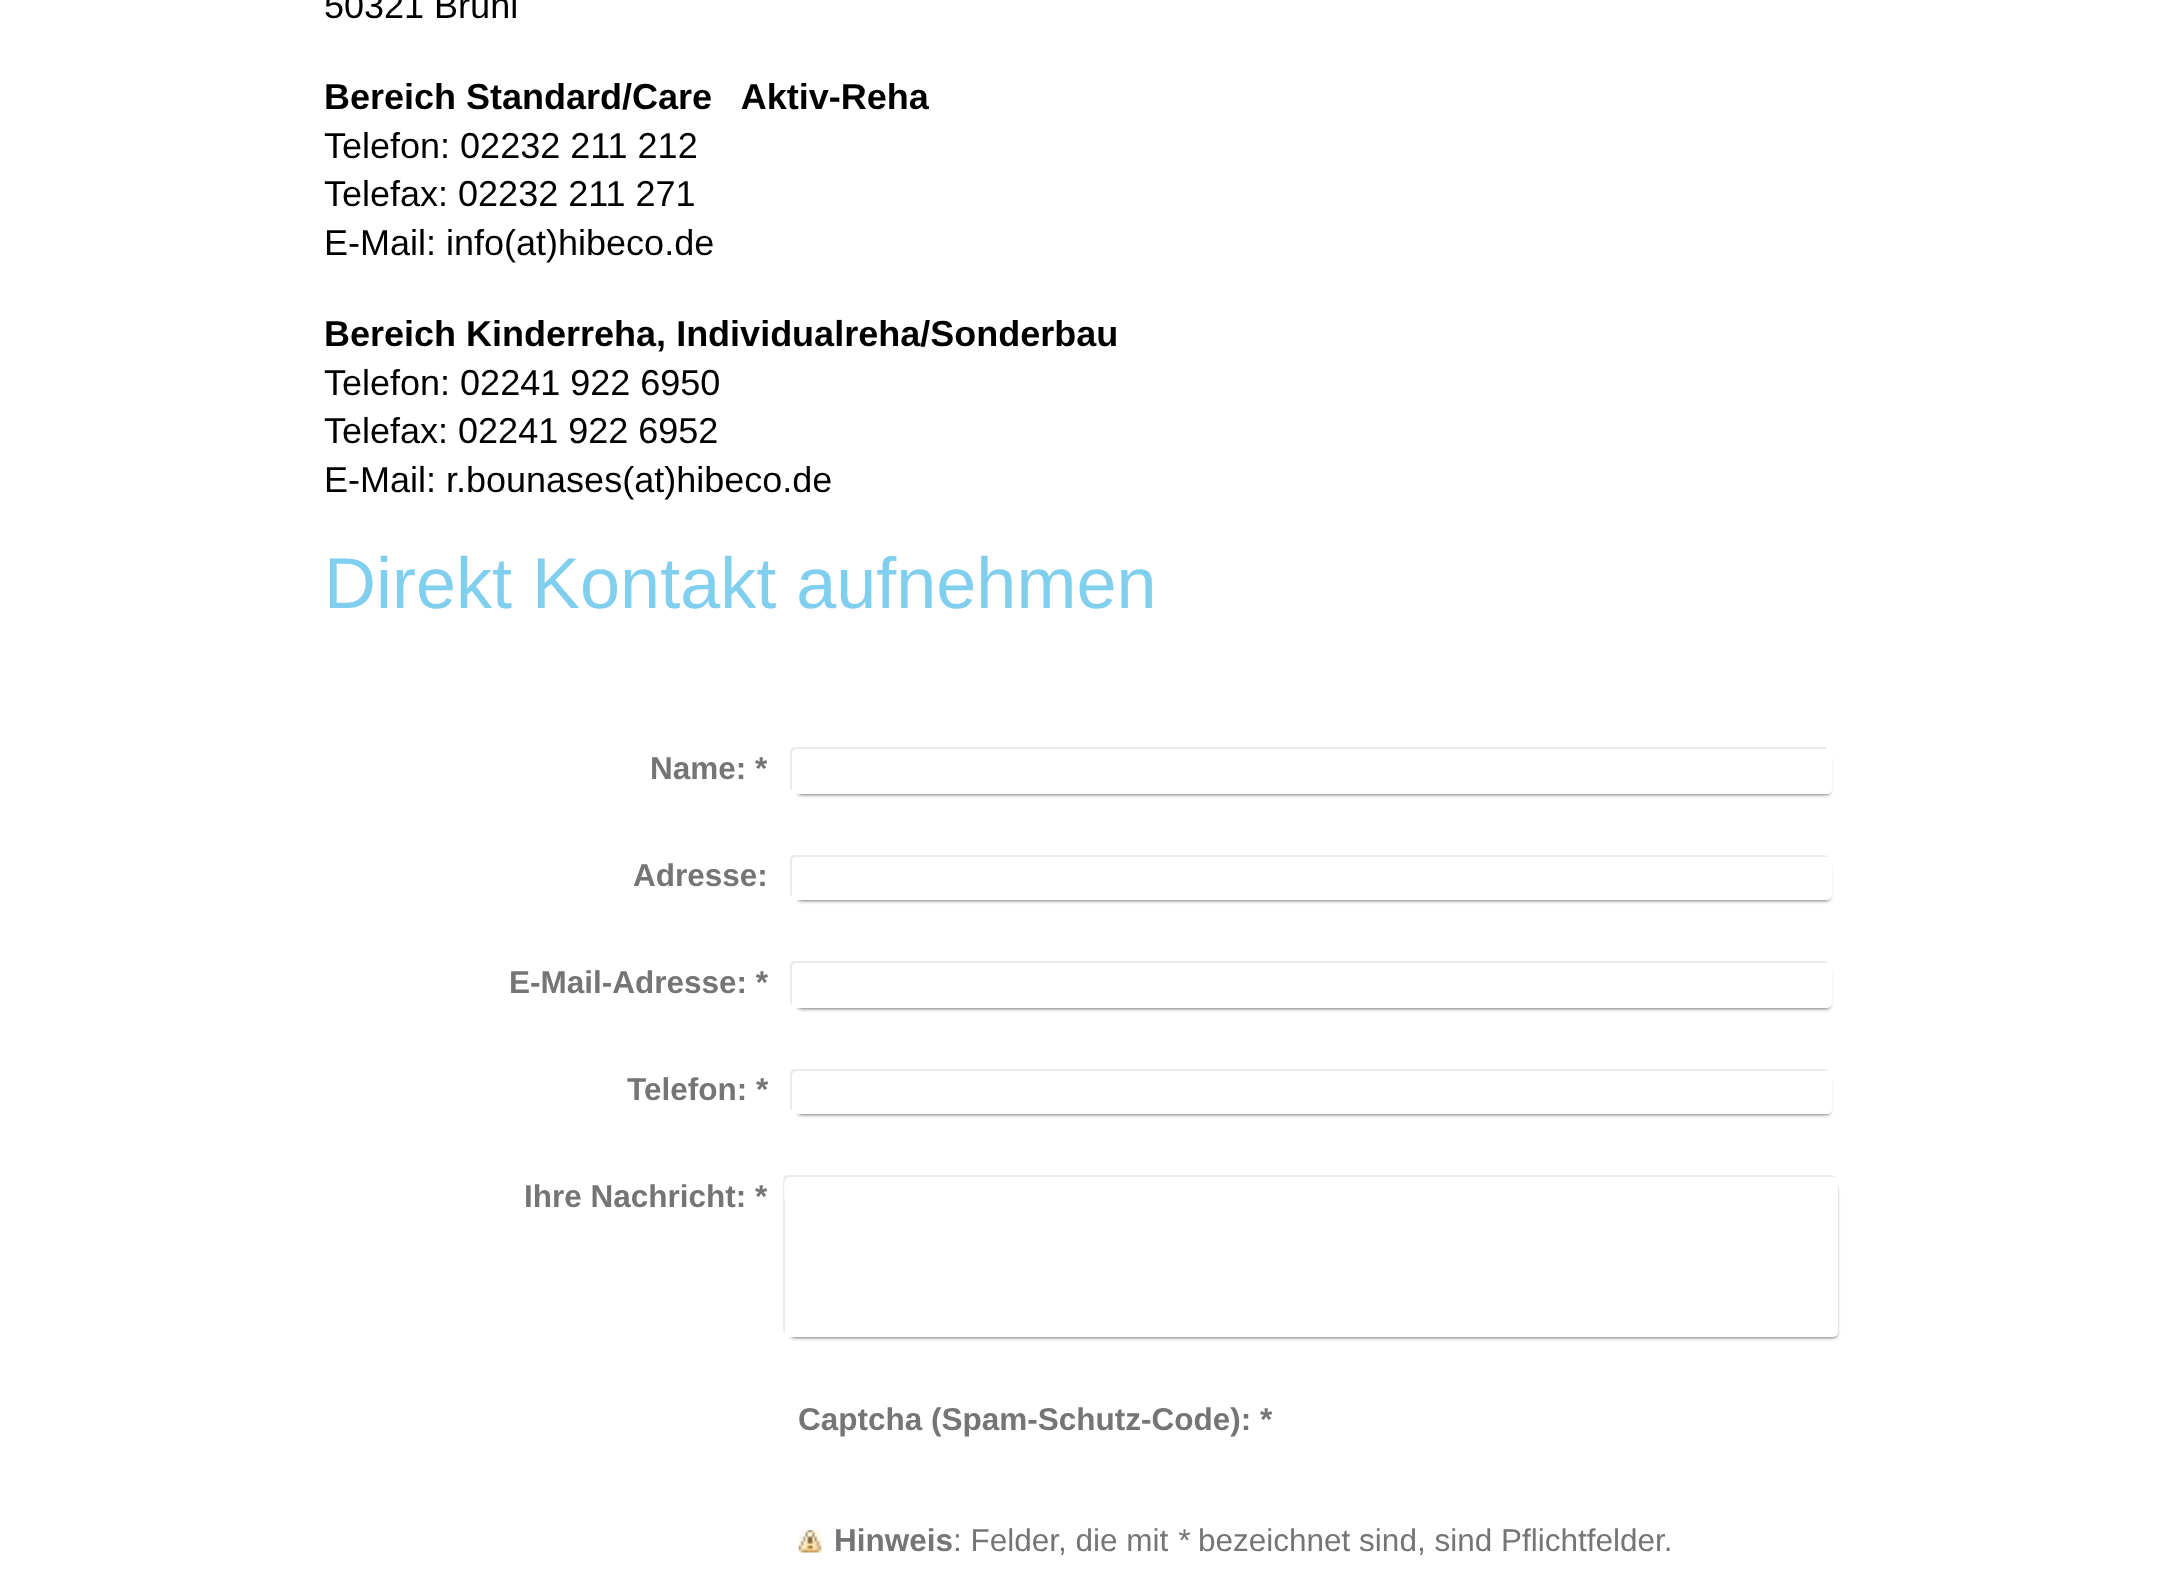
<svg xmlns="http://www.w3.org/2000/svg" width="2178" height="1572">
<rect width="100%" height="100%" fill="#fff"/>
<text x="324" y="18" style="font-family:Liberation Sans;font-size:36px;fill:#000">50321 Brühl</text>
<text x="324" y="109" style="font-family:Liberation Sans;font-size:36px;font-weight:bold;fill:#000" xml:space="preserve">Bereich Standard/Care   Aktiv-Reha</text>
<text x="324" y="158" style="font-family:Liberation Sans;font-size:36px;fill:#000">Telefon: 02232 211 212</text>
<text x="324" y="206" style="font-family:Liberation Sans;font-size:36px;fill:#000">Telefax: 02232 211 271</text>
<text x="324" y="255" style="font-family:Liberation Sans;font-size:36px;fill:#000">E-Mail: info(at)hibeco.de</text>
<text x="324" y="346" style="font-family:Liberation Sans;font-size:36px;font-weight:bold;fill:#000">Bereich Kinderreha, Individualreha/Sonderbau</text>
<text x="324" y="395" style="font-family:Liberation Sans;font-size:36px;fill:#000">Telefon: 02241 922 6950</text>
<text x="324" y="443" style="font-family:Liberation Sans;font-size:36px;fill:#000">Telefax: 02241 922 6952</text>
<text x="324" y="492" style="font-family:Liberation Sans;font-size:36px;fill:#000">E-Mail: r.bounases(at)hibeco.de</text>
<text x="324" y="608" style="font-family:Liberation Sans;font-size:72px;fill:#80cfef">Direkt Kontakt aufnehmen</text>
<path d="M795 747c-3 0-5 2-5 5v35c0 2 1 3 2 4v-31c0-4-1-11 4-11h1032c-1-1-2-2-4-2z" fill="#ebebeb"/>
<rect x="799" y="758" width="1030" height="36" fill="#000000cc" filter="blur(2px)"/>
<rect x="792" y="749" width="1040" height="45" rx="5" fill="#fff"/>
<text x="650" y="779" style="font-family:Liberation Sans;font-size:31.5px;font-weight:bold;fill:#757575">Name: *</text>
<path d="M795 855c-3 0-5 2-5 5v33c0 2 1 3 2 4v-30c0-3-1-10 4-10h1032c-1-1-2-2-4-2z" fill="#ebebeb"/>
<rect x="799" y="866" width="1030" height="34" fill="#000000cc" filter="blur(2px)"/>
<rect x="792" y="857" width="1040" height="43" rx="5" fill="#fff"/>
<text x="633" y="886" style="font-family:Liberation Sans;font-size:31.5px;font-weight:bold;fill:#757575">Adresse:</text>
<path d="M795 961c-3 0-5 2-5 5v35c0 2 1 3 2 4v-31c0-4-1-11 4-11h1032c-1-1-2-2-4-2z" fill="#ebebeb"/>
<rect x="799" y="972" width="1030" height="36" fill="#000000cc" filter="blur(2px)"/>
<rect x="792" y="963" width="1040" height="45" rx="5" fill="#fff"/>
<text x="509" y="993" style="font-family:Liberation Sans;font-size:31.5px;font-weight:bold;fill:#757575">E-Mail-Adresse: *</text>
<path d="M795 1069c-3 0-5 2-5 5v33c0 2 1 3 3 4l-1-2v-33c0-3 2-5 4-5h1032c-1-1-2-2-4-2z" fill="#ebebeb"/>
<rect x="799" y="1080" width="1030" height="34" fill="#000000cc" filter="blur(2px)"/>
<rect x="792" y="1071" width="1040" height="43" rx="5" fill="#fff"/>
<text x="627" y="1100" style="font-family:Liberation Sans;font-size:31.5px;font-weight:bold;fill:#757575">Telefon: *</text>
<path d="M788 1175c-3 0-5 2-5 5v149c0 2 1 3 2 4v-127c0-9-4-29 5-29h1045c-1-1-2-2-4-2z" fill="#ebebeb"/>
<rect x="792" y="1186" width="1044" height="151" fill="#000000cc" filter="blur(2px)"/>
<rect x="785" y="1177" width="1053" height="160" rx="5" fill="#fff"/>
<text x="524" y="1207" style="font-family:Liberation Sans;font-size:31.5px;font-weight:bold;fill:#757575">Ihre Nachricht: *</text>
<text x="798" y="1430" style="font-family:Liberation Sans;font-size:31.5px;font-weight:bold;fill:#757575">Captcha (Spam-Schutz-Code): *</text>
<image x="798" y="1530" width="24" height="23" href="media/1.png"/>
<text x="834" y="1551" style="font-family:Liberation Sans;font-size:31.5px;font-weight:bold;fill:#757575">Hinweis</text>
<text x="953" y="1551" style="font-family:Liberation Sans;font-size:31.5px;fill:#757575">: Felder, die mit</text>
<text x="1177" y="1551" style="font-family:Liberation Sans;font-size:31.5px;font-style:italic;fill:#757575">*</text>
<text x="1198" y="1551" style="font-family:Liberation Sans;font-size:31.5px;fill:#757575">bezeichnet sind, sind Pflichtfelder.</text>
</svg>
